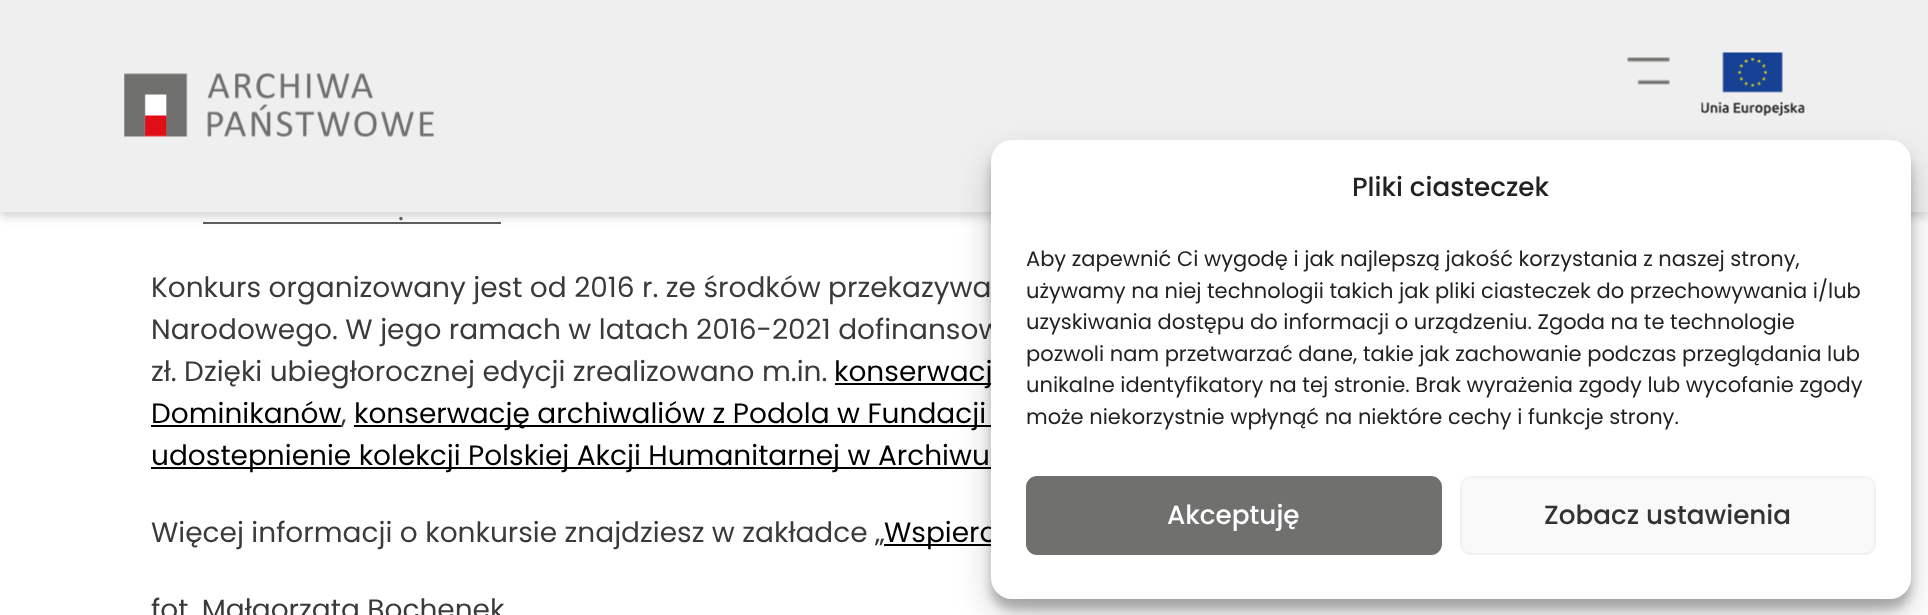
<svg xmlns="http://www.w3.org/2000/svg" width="1928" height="615">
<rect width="100%" height="100%" fill="#fff"/>
<rect x="203" y="222" width="298" height="2" fill="#605e5e"/>
<rect y="5" width="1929" height="212" fill="#00000029" filter="blur(5px)"/>
<rect width="1928" height="212" fill="#efefef"/>
<image x="124" y="73" width="311" height="64" href="media/1.png"/>
<image x="1627" y="57" width="43" height="28" href="media/2.png"/>
<image x="1701" y="52" width="104" height="64" href="media/3.png"/>
<text x="398" y="220" style="font-family:Poppins;font-size:28px;fill:#605e5e">.</text>
<text x="151" y="297" style="font-family:Poppins;font-size:28px;fill:#3b3a3a">Konkurs organizowany jest od 2016 r. ze środków przekazywa</text>
<text x="151" y="339" style="font-family:Poppins;font-size:28px;fill:#3b3a3a">Narodowego. W jego ramach w latach 2016-2021 dofinansow</text>
<text x="151" y="381" style="font-family:Poppins;font-size:28px;fill:#3b3a3a">zł. Dzięki ubiegłorocznej edycji zrealizowano m.in.</text>
<rect x="835" y="383" width="156" height="2" fill="#000"/>
<text x="834" y="381" style="font-family:Poppins;font-size:28px;fill:#000">konserwacj</text>
<text x="151" y="423" style="font-family:Poppins;font-size:28px;fill:#000">Dominikanów</text>
<rect x="151" y="425" width="190" height="2" fill="#000"/>
<text x="341" y="423" style="font-family:Poppins;font-size:28px;fill:#3b3a3a">,</text>
<rect x="354" y="425" width="637" height="2" fill="#000"/>
<text x="354" y="423" style="font-family:Poppins;font-size:28px;fill:#000">konserwację archiwaliów z Podola w Fundacji</text>
<rect x="151" y="467" width="840" height="2" fill="#000"/>
<text x="151" y="465" style="font-family:Poppins;font-size:28px;fill:#000">udostepnienie kolekcji Polskiej Akcji Humanitarnej w Archiwu</text>
<text x="151" y="542" style="font-family:Poppins;font-size:28px;fill:#3b3a3a">Więcej informacji o konkursie znajdziesz w zakładce „</text>
<rect x="884" y="544" width="107" height="2" fill="#000"/>
<text x="884" y="542" style="font-family:Poppins;font-size:28px;fill:#000">Wspiera</text>
<text x="151" y="619" style="font-family:Poppins;font-size:28px;fill:#3b3a3a">fot. Małgorzata Bochenek</text>
<rect x="991" y="151" width="920" height="458" rx="21" fill="#0000003b" filter="blur(5px)"/>
<rect x="991" y="158" width="920" height="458" rx="21" fill="#00000030" filter="blur(17.5px)"/>
<rect x="991" y="140" width="920" height="459" rx="21" fill="#fff"/>
<text x="1352" y="196" style="font-family:Poppins;font-size:26.25px;font-weight:500;fill:#222">Pliki ciasteczek</text>
<text x="1026" y="266" style="font-family:Poppins;font-size:21px;fill:#222">Aby zapewnić Ci wygodę i jak najlepszą jakość korzystania z naszej strony,</text>
<text x="1026" y="298" style="font-family:Poppins;font-size:21px;fill:#222">używamy na niej technologii takich jak pliki ciasteczek do przechowywania i/lub</text>
<text x="1026" y="329" style="font-family:Poppins;font-size:21px;fill:#222">uzyskiwania dostępu do informacji o urządzeniu. Zgoda na te technologie</text>
<text x="1026" y="361" style="font-family:Poppins;font-size:21px;fill:#222">pozwoli nam przetwarzać dane, takie jak zachowanie podczas przeglądania lub</text>
<text x="1026" y="392" style="font-family:Poppins;font-size:21px;fill:#222">unikalne identyfikatory na tej stronie. Brak wyrażenia zgody lub wycofanie zgody</text>
<text x="1026" y="424" style="font-family:Poppins;font-size:21px;fill:#222">może niekorzystnie wpłynąć na niektóre cechy i funkcje strony.</text>
<rect x="1027" y="477" width="414" height="77" rx="10" fill="#70706f" stroke="#70706f" stroke-width="2"/>
<text x="1167" y="524" style="font-family:Poppins;font-size:26.25px;font-weight:500;fill:#fff">Akceptuję</text>
<rect x="1461" y="477" width="414" height="77" rx="10" fill="#f9f9f9" stroke="#f2f2f2" stroke-width="2"/>
<text x="1544" y="524" style="font-family:Poppins;font-size:26.25px;font-weight:500;fill:#333">Zobacz ustawienia</text>
</svg>
